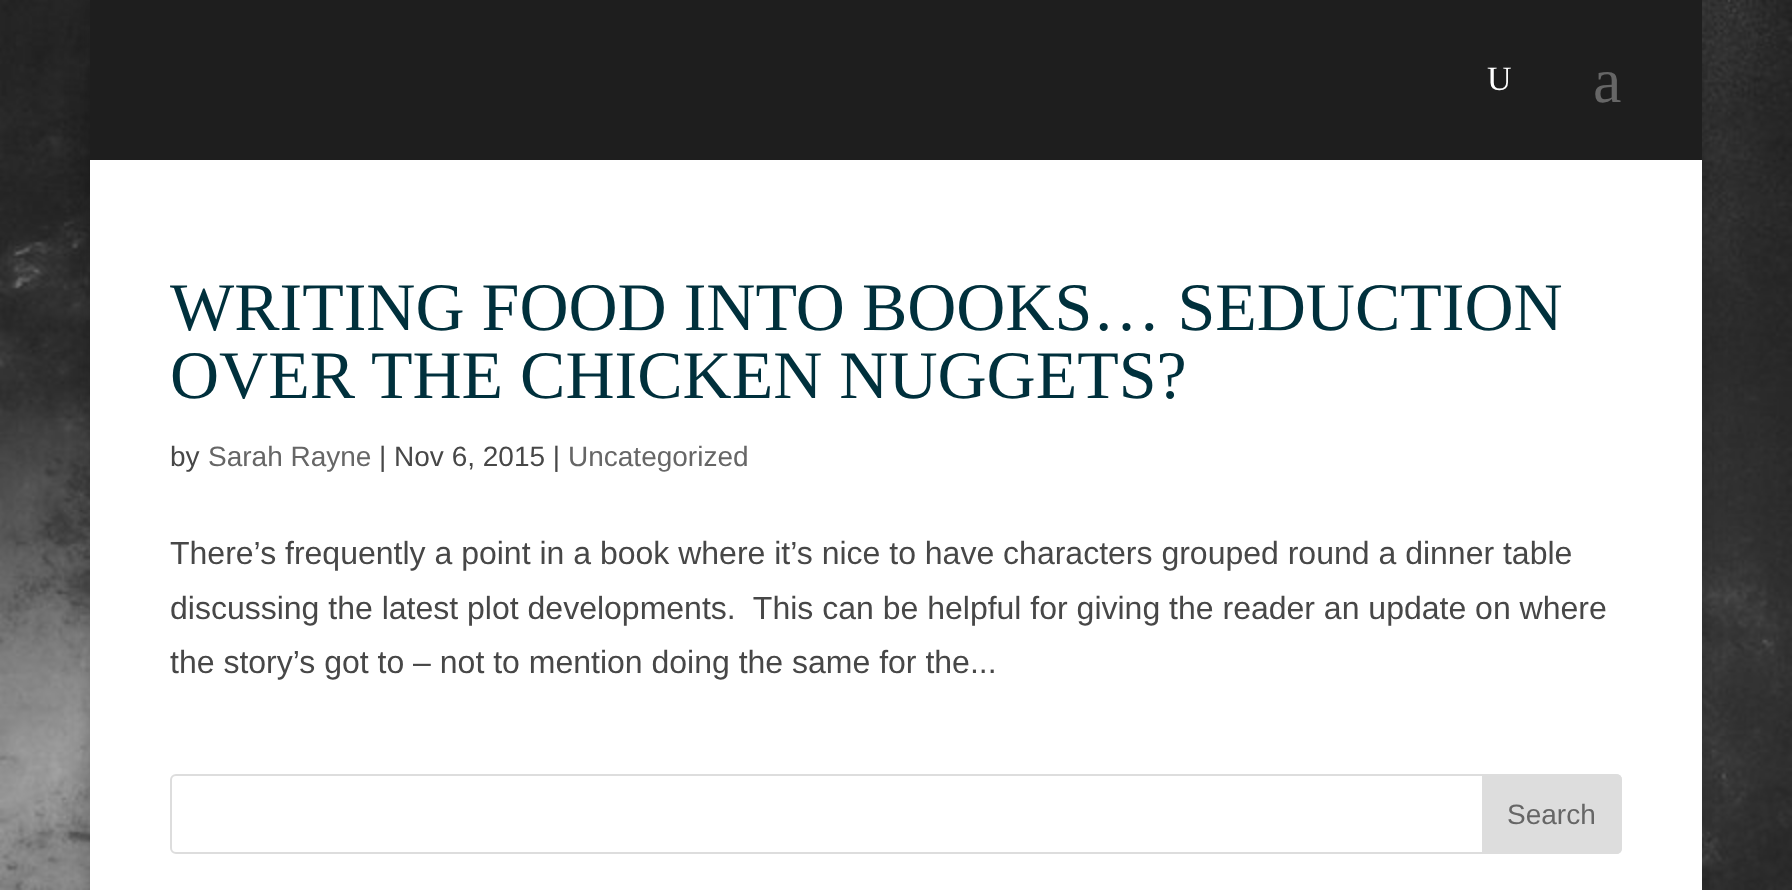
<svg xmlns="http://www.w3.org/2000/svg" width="1792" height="890">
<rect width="100%" height="100%" fill="#fff"/>
<image x="0" y="0" width="1792" height="890" href="media/1.png"/>
<rect x="90" width="1612" height="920" fill="#00000033" filter="blur(10px)"/>
<rect x="90" width="1612" height="160" fill="#1e1e1e"/>
<text x="1487" y="90" style="font-family:Liberation Serif;font-size:34px;fill:#fff">U</text>
<text x="1593" y="102" style="font-family:Liberation Serif;font-size:64px;fill:#666">a</text>
<rect x="90" y="160" width="1612" height="730" fill="#fff"/>
<text x="170" y="330" style="font-family:Liberation Serif;font-size:68px;fill:#00303c">WRITING FOOD INTO BOOKS… SEDUCTION</text>
<text x="170" y="398" style="font-family:Liberation Serif;font-size:68px;fill:#00303c">OVER THE CHICKEN NUGGETS?</text>
<text x="170" y="466" style="font-family:Liberation Sans;font-size:28px;fill:#474747">by</text>
<text x="208" y="466" style="font-family:Liberation Sans;font-size:28px;fill:#666">Sarah Rayne</text>
<text x="379" y="466" style="font-family:Liberation Sans;font-size:28px;fill:#474747">| Nov 6, 2015 |</text>
<text x="568" y="466" style="font-family:Liberation Sans;font-size:28px;fill:#666">Uncategorized</text>
<text x="170" y="564" style="font-family:Liberation Sans;font-size:32px;fill:#474747">There’s frequently a point in a book where it’s nice to have characters grouped round a dinner table</text>
<text x="170" y="619" style="font-family:Liberation Sans;font-size:32px;fill:#474747" xml:space="preserve">discussing the latest plot developments.  This can be helpful for giving the reader an update on where</text>
<text x="170" y="673" style="font-family:Liberation Sans;font-size:32px;fill:#474747">the story’s got to – not to mention doing the same for the...</text>
<rect x="171" y="775" width="1450" height="78" rx="5" fill="none" stroke="#ddd" stroke-width="2"/>
<path d="M1483 775h133c3 0 5 2 5 5v68c0 3-2 5-5 5h-133z" fill="#ddd" stroke="#ddd" stroke-width="2"/>
<text x="1507" y="824" style="font-family:Liberation Sans;font-size:28px;fill:#666">Search</text>
</svg>
